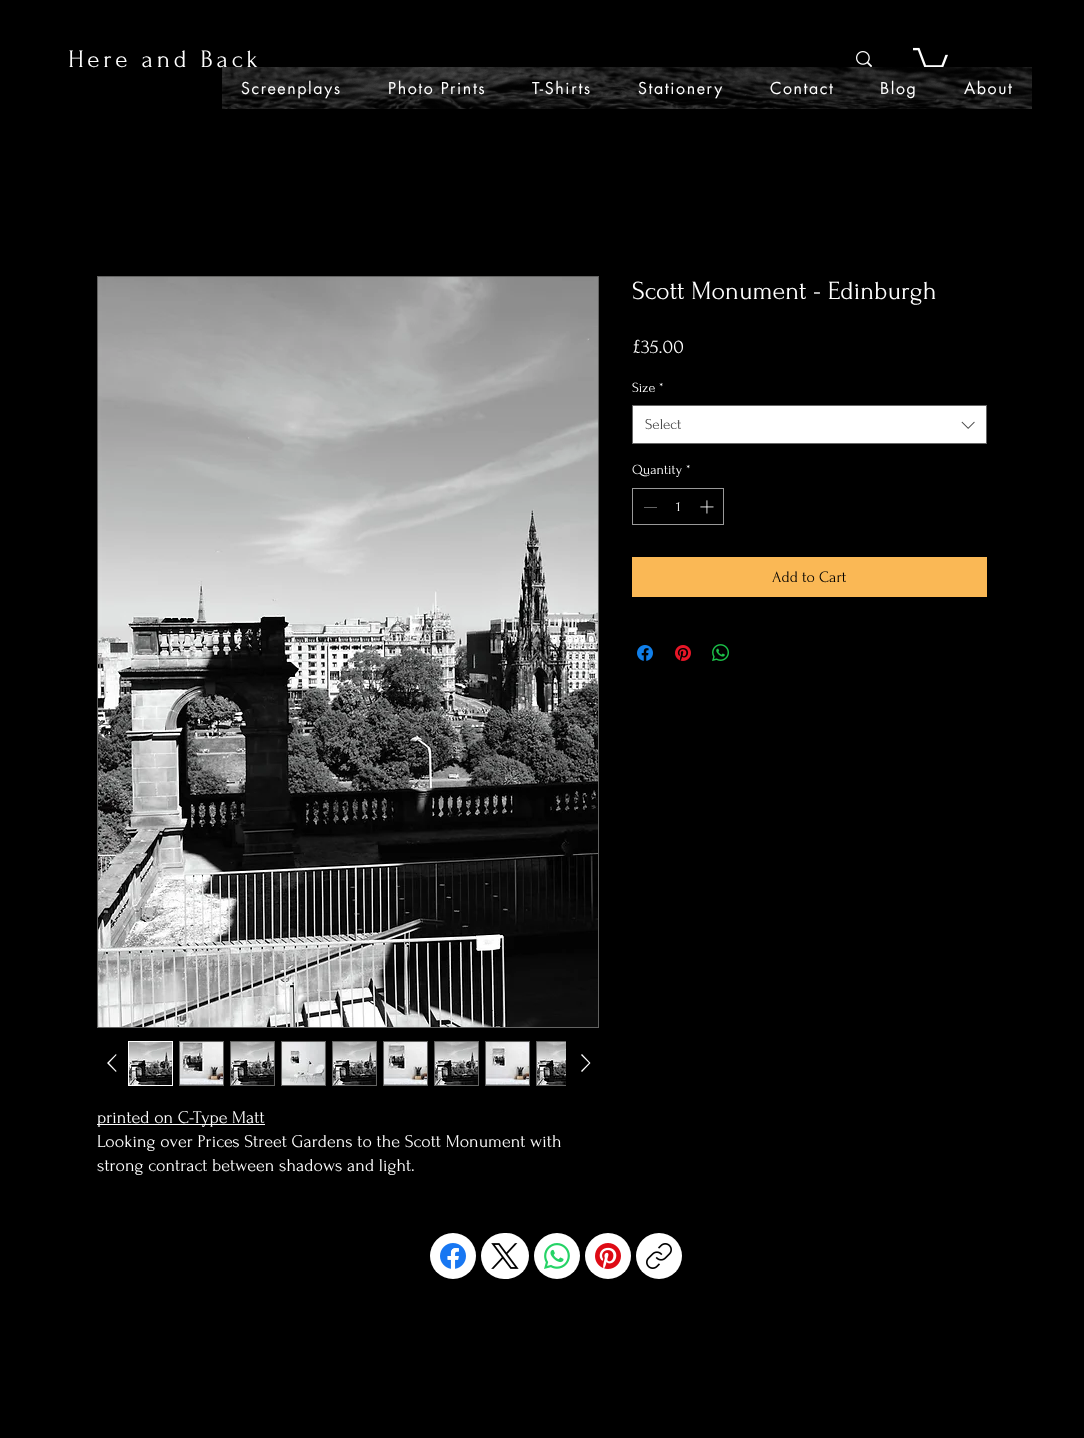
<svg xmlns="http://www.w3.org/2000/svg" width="1084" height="1438">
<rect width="100%" height="100%" fill="#000"/>
<text x="68" y="67" style="font-family:Forum;font-size:25px;letter-spacing:3.75px;fill:#fff">Here and Back</text>
<image x="856" y="51" width="16" height="16" href="media/1.png"/>
<image x="913" y="47" width="35" height="20" href="media/2.png"/>
<image x="222" y="67" width="810" height="42" href="media/3.png"/>
<text x="241" y="94" style="font-family:futura;font-size:16px;letter-spacing:1.6px;fill:#fff">Screenplays</text>
<text x="388" y="94" style="font-family:futura;font-size:16px;letter-spacing:1.6px;fill:#fff">Photo Prints</text>
<text x="532" y="94" style="font-family:futura;font-size:16px;letter-spacing:1.6px;fill:#fff">T-Shirts</text>
<text x="638" y="94" style="font-family:futura;font-size:16px;letter-spacing:1.6px;fill:#fff">Stationery</text>
<text x="770" y="94" style="font-family:futura;font-size:16px;letter-spacing:1.6px;fill:#fff">Contact</text>
<text x="880" y="94" style="font-family:futura;font-size:16px;letter-spacing:1.6px;fill:#fff">Blog</text>
<text x="964" y="94" style="font-family:futura;font-size:16px;letter-spacing:1.6px;fill:#fff">About</text>
<text x="632" y="299" style="font-family:Forum;font-size:26px;fill:#fff">Scott Monument - Edinburgh</text>
<text x="632" y="353" style="font-family:Forum;font-size:20px;fill:#fff">£35.00</text>
<text x="632" y="392" style="font-family:Forum;font-size:14px;fill:#fff">Size</text>
<text x="659" y="392" style="font-family:Forum;font-size:14px;fill:#fff">*</text>
<rect x="632.5" y="405.5" width="354" height="38" fill="#fff" stroke="#666"/>
<text x="645" y="429" style="font-family:Forum;font-size:15px;fill:#444">Select</text>
<image x="961" y="421" width="14" height="8" href="media/4.png"/>
<text x="632" y="474" style="font-family:Forum;font-size:14px;fill:#fff">Quantity</text>
<text x="686" y="474" style="font-family:Forum;font-size:14px;fill:#fff">*</text>
<rect x="632.5" y="488.5" width="91" height="36" fill="none" stroke="#999"/>
<rect x="644" y="507" width="13" height="1" fill="#646464"/>
<text x="676" y="511" style="font-family:Forum;font-size:14px;fill:#fff">1</text>
<image x="700" y="500" width="14" height="14" href="media/5.png"/>
<rect x="632" y="557" width="355" height="40" fill="#fab855"/>
<text x="772" y="582" style="font-family:Forum;font-size:16px;fill:#000">Add to Cart</text>
<image x="637" y="645" width="16" height="16" href="media/6.png"/>
<image x="675" y="645" width="16" height="16" href="media/7.png"/>
<image x="712" y="644" width="17" height="17" href="media/8.png"/>
<rect x="97.5" y="276.5" width="501" height="751" fill="none" stroke="#636362"/>
<image x="98" y="277" width="500" height="750" href="media/9.png"/>
<path d="M116 1054l.5 1l-7.5 8l7.5 8l-.5 1l-9-9z" fill="#fff" fill-rule="evenodd"/>
<rect x="128.5" y="1041.5" width="44" height="44" fill="none" stroke="#fff"/>
<image x="129" y="1042" width="43" height="43" href="media/10.png"/>
<rect x="179" y="1041" width="45" height="45" fill="#636362"/>
<image x="180" y="1042" width="43" height="43" href="media/11.png"/>
<rect x="230" y="1041" width="45" height="45" fill="#636362"/>
<image x="231" y="1042" width="43" height="43" href="media/10.png"/>
<rect x="281" y="1041" width="45" height="45" fill="#636362"/>
<image x="282" y="1042" width="43" height="43" href="media/12.png"/>
<rect x="332" y="1041" width="45" height="45" fill="#636362"/>
<image x="333" y="1042" width="43" height="43" href="media/10.png"/>
<rect x="383" y="1041" width="45" height="45" fill="#636362"/>
<image x="384" y="1042" width="43" height="43" href="media/13.png"/>
<rect x="434" y="1041" width="45" height="45" fill="#636362"/>
<image x="435" y="1042" width="43" height="43" href="media/10.png"/>
<rect x="485" y="1041" width="45" height="45" fill="#636362"/>
<image x="486" y="1042" width="43" height="43" href="media/14.png"/>
<rect x="536" y="1041" width="30" height="45" fill="#636362"/>
<image x="537" y="1042" width="29" height="43" href="media/15.png"/>
<path d="M582 1054l8.5 9l-8.5 9l-1-1l8-8l-8-8z" fill="#fff" fill-rule="evenodd"/>
<rect x="97" y="1124" width="168" height="1" fill="#fff"/>
<text x="97" y="1123" style="font-family:Forum;font-size:18px;fill:#fff">printed on C-Type Matt</text>
<text x="97" y="1147" style="font-family:Forum;font-size:18px;fill:#fff">Looking over Prices Street Gardens to the Scott Monument with</text>
<text x="97" y="1171" style="font-family:Forum;font-size:18px;fill:#fff">strong contract between shadows and light.</text>
<circle cx="453" cy="1256" r="23" fill="#fff"/>
<image x="440" y="1243" width="26" height="26" href="media/16.png"/>
<rect x="481" y="1233" width="48" height="46" rx="23" fill="#fff"/>
<image x="491" y="1243" width="28" height="26" href="media/17.png"/>
<circle cx="557" cy="1256" r="23" fill="#fff"/>
<image x="544" y="1243" width="26" height="26" href="media/18.png"/>
<circle cx="608" cy="1256" r="23" fill="#fff"/>
<image x="595" y="1243" width="26" height="26" href="media/19.png"/>
<circle cx="659" cy="1256" r="23" fill="#fff"/>
<image x="646" y="1243" width="26" height="26" href="media/20.png"/>
</svg>
